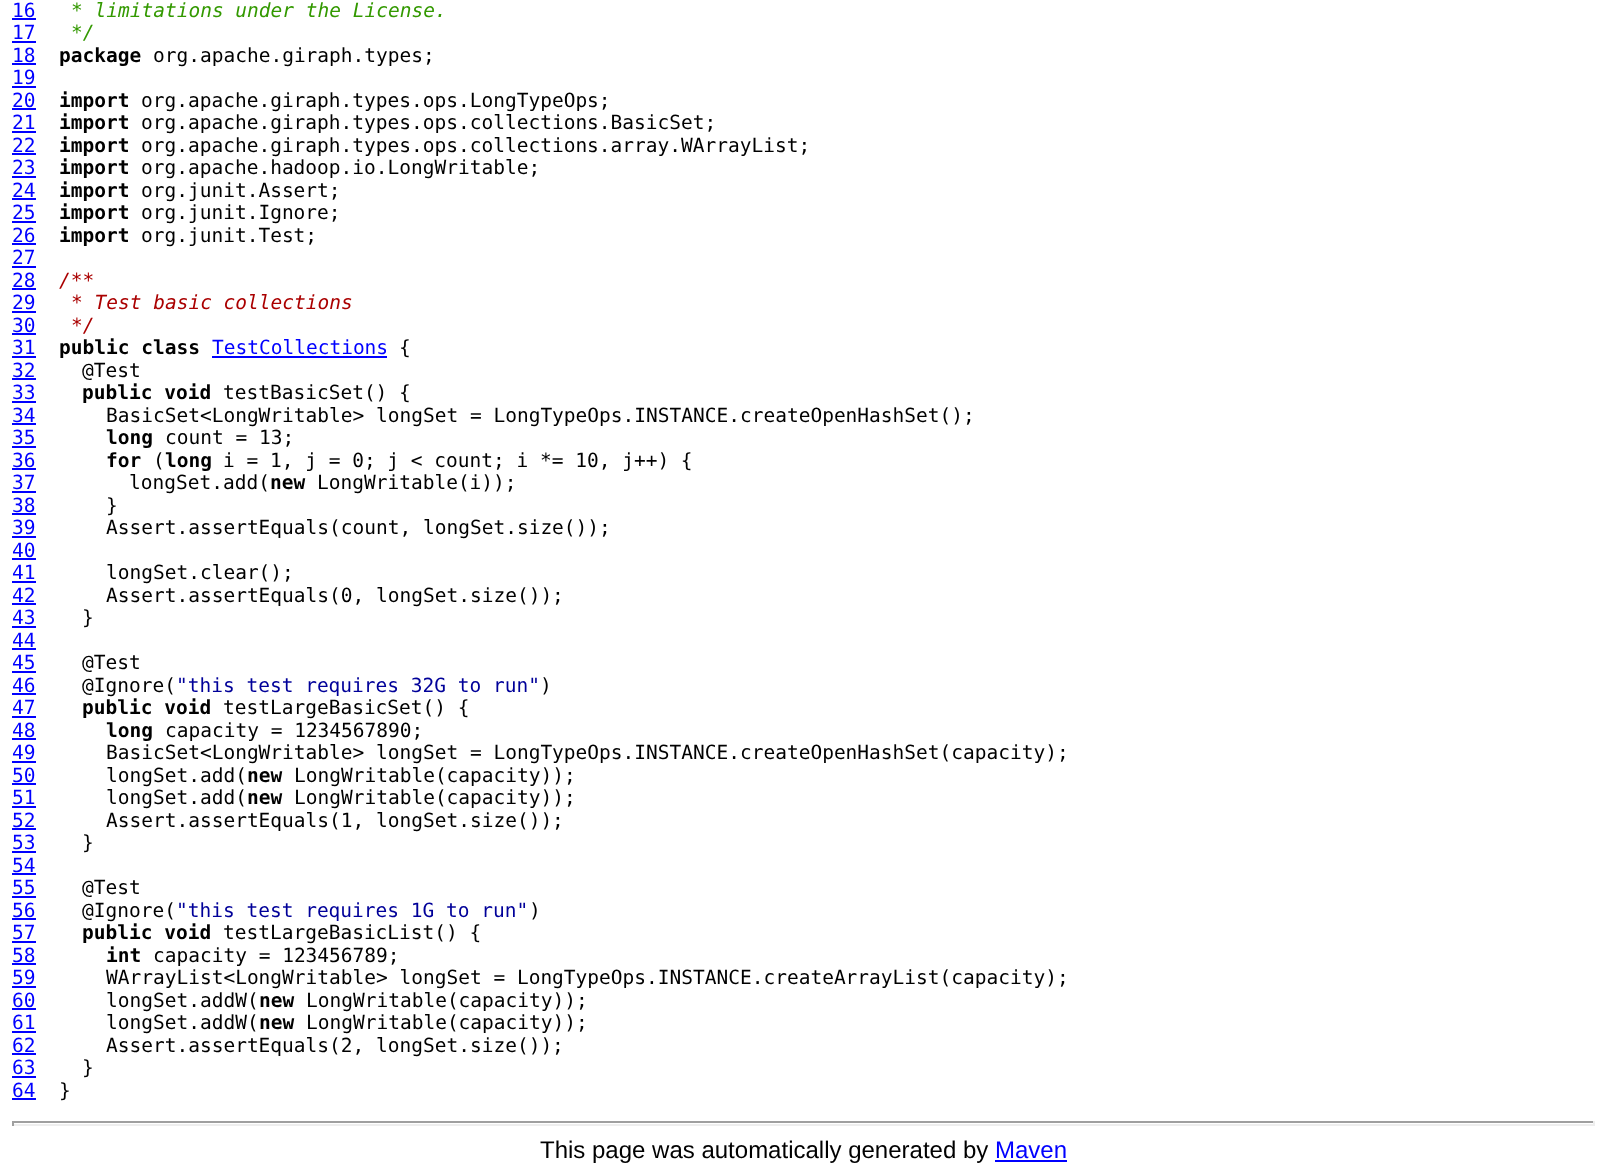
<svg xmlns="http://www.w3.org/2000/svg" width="1606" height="1175">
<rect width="100%" height="100%" fill="#fff"/>
<text x="12" y="17" style="font-family:DejaVu Sans Mono;font-size:19.5px;fill:#00f">16</text>
<rect x="12" y="18" width="24" height="2" fill="#00f"/>
<text x="71" y="17" style="font-family:DejaVu Sans Mono;font-size:19.5px;font-style:italic;fill:#390">* limitations under the License.</text>
<text x="12" y="39" style="font-family:DejaVu Sans Mono;font-size:19.5px;fill:#00f">17</text>
<rect x="12" y="41" width="24" height="2" fill="#00f"/>
<text x="71" y="39" style="font-family:DejaVu Sans Mono;font-size:19.5px;font-style:italic;fill:#390">*/</text>
<text x="12" y="62" style="font-family:DejaVu Sans Mono;font-size:19.5px;fill:#00f">18</text>
<rect x="12" y="63" width="24" height="2" fill="#00f"/>
<text x="59" y="62" style="font-family:DejaVu Sans Mono;font-size:19.5px;font-weight:bold;fill:#000">package</text>
<text x="153" y="62" style="font-family:DejaVu Sans Mono;font-size:19.5px;fill:#000">org.apache.giraph.types;</text>
<text x="12" y="84" style="font-family:DejaVu Sans Mono;font-size:19.5px;fill:#00f">19</text>
<rect x="12" y="86" width="24" height="2" fill="#00f"/>
<text x="12" y="107" style="font-family:DejaVu Sans Mono;font-size:19.5px;fill:#00f">20</text>
<rect x="12" y="108" width="24" height="2" fill="#00f"/>
<text x="59" y="107" style="font-family:DejaVu Sans Mono;font-size:19.5px;font-weight:bold;fill:#000">import</text>
<text x="141" y="107" style="font-family:DejaVu Sans Mono;font-size:19.5px;fill:#000">org.apache.giraph.types.ops.LongTypeOps;</text>
<text x="12" y="129" style="font-family:DejaVu Sans Mono;font-size:19.5px;fill:#00f">21</text>
<rect x="12" y="131" width="24" height="2" fill="#00f"/>
<text x="59" y="129" style="font-family:DejaVu Sans Mono;font-size:19.5px;font-weight:bold;fill:#000">import</text>
<text x="141" y="129" style="font-family:DejaVu Sans Mono;font-size:19.5px;fill:#000">org.apache.giraph.types.ops.collections.BasicSet;</text>
<text x="12" y="152" style="font-family:DejaVu Sans Mono;font-size:19.5px;fill:#00f">22</text>
<rect x="12" y="153" width="24" height="2" fill="#00f"/>
<text x="59" y="152" style="font-family:DejaVu Sans Mono;font-size:19.5px;font-weight:bold;fill:#000">import</text>
<text x="141" y="152" style="font-family:DejaVu Sans Mono;font-size:19.5px;fill:#000">org.apache.giraph.types.ops.collections.array.WArrayList;</text>
<text x="12" y="174" style="font-family:DejaVu Sans Mono;font-size:19.5px;fill:#00f">23</text>
<rect x="12" y="176" width="24" height="2" fill="#00f"/>
<text x="59" y="174" style="font-family:DejaVu Sans Mono;font-size:19.5px;font-weight:bold;fill:#000">import</text>
<text x="141" y="174" style="font-family:DejaVu Sans Mono;font-size:19.5px;fill:#000">org.apache.hadoop.io.LongWritable;</text>
<text x="12" y="197" style="font-family:DejaVu Sans Mono;font-size:19.5px;fill:#00f">24</text>
<rect x="12" y="198" width="24" height="2" fill="#00f"/>
<text x="59" y="197" style="font-family:DejaVu Sans Mono;font-size:19.5px;font-weight:bold;fill:#000">import</text>
<text x="141" y="197" style="font-family:DejaVu Sans Mono;font-size:19.5px;fill:#000">org.junit.Assert;</text>
<text x="12" y="219" style="font-family:DejaVu Sans Mono;font-size:19.5px;fill:#00f">25</text>
<rect x="12" y="221" width="24" height="2" fill="#00f"/>
<text x="59" y="219" style="font-family:DejaVu Sans Mono;font-size:19.5px;font-weight:bold;fill:#000">import</text>
<text x="141" y="219" style="font-family:DejaVu Sans Mono;font-size:19.5px;fill:#000">org.junit.Ignore;</text>
<text x="12" y="242" style="font-family:DejaVu Sans Mono;font-size:19.5px;fill:#00f">26</text>
<rect x="12" y="243" width="24" height="2" fill="#00f"/>
<text x="59" y="242" style="font-family:DejaVu Sans Mono;font-size:19.5px;font-weight:bold;fill:#000">import</text>
<text x="141" y="242" style="font-family:DejaVu Sans Mono;font-size:19.5px;fill:#000">org.junit.Test;</text>
<text x="12" y="264" style="font-family:DejaVu Sans Mono;font-size:19.5px;fill:#00f">27</text>
<rect x="12" y="266" width="24" height="2" fill="#00f"/>
<text x="12" y="287" style="font-family:DejaVu Sans Mono;font-size:19.5px;fill:#00f">28</text>
<rect x="12" y="288" width="24" height="2" fill="#00f"/>
<text x="59" y="287" style="font-family:DejaVu Sans Mono;font-size:19.5px;font-style:italic;fill:#a00">/**</text>
<text x="12" y="309" style="font-family:DejaVu Sans Mono;font-size:19.5px;fill:#00f">29</text>
<rect x="12" y="311" width="24" height="2" fill="#00f"/>
<text x="71" y="309" style="font-family:DejaVu Sans Mono;font-size:19.5px;font-style:italic;fill:#a00">* Test basic collections</text>
<text x="12" y="332" style="font-family:DejaVu Sans Mono;font-size:19.5px;fill:#00f">30</text>
<rect x="12" y="333" width="24" height="2" fill="#00f"/>
<text x="71" y="332" style="font-family:DejaVu Sans Mono;font-size:19.5px;font-style:italic;fill:#a00">*/</text>
<text x="12" y="354" style="font-family:DejaVu Sans Mono;font-size:19.5px;fill:#00f">31</text>
<rect x="12" y="356" width="24" height="2" fill="#00f"/>
<text x="59" y="354" style="font-family:DejaVu Sans Mono;font-size:19.5px;font-weight:bold;fill:#000">public class</text>
<text x="212" y="354" style="font-family:DejaVu Sans Mono;font-size:19.5px;fill:#00f">TestCollections</text>
<rect x="212" y="356" width="175" height="2" fill="#00f"/>
<text x="399" y="354" style="font-family:DejaVu Sans Mono;font-size:19.5px;fill:#000">{</text>
<text x="12" y="377" style="font-family:DejaVu Sans Mono;font-size:19.5px;fill:#00f">32</text>
<rect x="12" y="378" width="24" height="2" fill="#00f"/>
<text x="82" y="377" style="font-family:DejaVu Sans Mono;font-size:19.5px;fill:#000">@Test</text>
<text x="12" y="399" style="font-family:DejaVu Sans Mono;font-size:19.5px;fill:#00f">33</text>
<rect x="12" y="401" width="24" height="2" fill="#00f"/>
<text x="82" y="399" style="font-family:DejaVu Sans Mono;font-size:19.5px;font-weight:bold;fill:#000">public void</text>
<text x="223" y="399" style="font-family:DejaVu Sans Mono;font-size:19.5px;fill:#000">testBasicSet() {</text>
<text x="12" y="422" style="font-family:DejaVu Sans Mono;font-size:19.5px;fill:#00f">34</text>
<rect x="12" y="423" width="24" height="2" fill="#00f"/>
<text x="106" y="422" style="font-family:DejaVu Sans Mono;font-size:19.5px;fill:#000">BasicSet&lt;LongWritable&gt; longSet = LongTypeOps.INSTANCE.createOpenHashSet();</text>
<text x="12" y="444" style="font-family:DejaVu Sans Mono;font-size:19.5px;fill:#00f">35</text>
<rect x="12" y="446" width="24" height="2" fill="#00f"/>
<text x="106" y="444" style="font-family:DejaVu Sans Mono;font-size:19.5px;font-weight:bold;fill:#000">long</text>
<text x="165" y="444" style="font-family:DejaVu Sans Mono;font-size:19.5px;fill:#000">count = 13;</text>
<text x="12" y="467" style="font-family:DejaVu Sans Mono;font-size:19.5px;fill:#00f">36</text>
<rect x="12" y="468" width="24" height="2" fill="#00f"/>
<text x="106" y="467" style="font-family:DejaVu Sans Mono;font-size:19.5px;font-weight:bold;fill:#000">for</text>
<text x="153" y="467" style="font-family:DejaVu Sans Mono;font-size:19.5px;fill:#000">(</text>
<text x="165" y="467" style="font-family:DejaVu Sans Mono;font-size:19.5px;font-weight:bold;fill:#000">long</text>
<text x="223" y="467" style="font-family:DejaVu Sans Mono;font-size:19.5px;fill:#000">i = 1, j = 0; j &lt; count; i *= 10, j++) {</text>
<text x="12" y="489" style="font-family:DejaVu Sans Mono;font-size:19.5px;fill:#00f">37</text>
<rect x="12" y="491" width="24" height="2" fill="#00f"/>
<text x="129" y="489" style="font-family:DejaVu Sans Mono;font-size:19.5px;fill:#000">longSet.add(</text>
<text x="270" y="489" style="font-family:DejaVu Sans Mono;font-size:19.5px;font-weight:bold;fill:#000">new</text>
<text x="317" y="489" style="font-family:DejaVu Sans Mono;font-size:19.5px;fill:#000">LongWritable(i));</text>
<text x="12" y="512" style="font-family:DejaVu Sans Mono;font-size:19.5px;fill:#00f">38</text>
<rect x="12" y="513" width="24" height="2" fill="#00f"/>
<text x="106" y="512" style="font-family:DejaVu Sans Mono;font-size:19.5px;fill:#000">}</text>
<text x="12" y="534" style="font-family:DejaVu Sans Mono;font-size:19.5px;fill:#00f">39</text>
<rect x="12" y="536" width="24" height="2" fill="#00f"/>
<text x="106" y="534" style="font-family:DejaVu Sans Mono;font-size:19.5px;fill:#000">Assert.assertEquals(count, longSet.size());</text>
<text x="12" y="557" style="font-family:DejaVu Sans Mono;font-size:19.5px;fill:#00f">40</text>
<rect x="12" y="558" width="24" height="2" fill="#00f"/>
<text x="12" y="579" style="font-family:DejaVu Sans Mono;font-size:19.5px;fill:#00f">41</text>
<rect x="12" y="581" width="24" height="2" fill="#00f"/>
<text x="106" y="579" style="font-family:DejaVu Sans Mono;font-size:19.5px;fill:#000">longSet.clear();</text>
<text x="12" y="602" style="font-family:DejaVu Sans Mono;font-size:19.5px;fill:#00f">42</text>
<rect x="12" y="603" width="24" height="2" fill="#00f"/>
<text x="106" y="602" style="font-family:DejaVu Sans Mono;font-size:19.5px;fill:#000">Assert.assertEquals(0, longSet.size());</text>
<text x="12" y="624" style="font-family:DejaVu Sans Mono;font-size:19.5px;fill:#00f">43</text>
<rect x="12" y="626" width="24" height="2" fill="#00f"/>
<text x="82" y="624" style="font-family:DejaVu Sans Mono;font-size:19.5px;fill:#000">}</text>
<text x="12" y="647" style="font-family:DejaVu Sans Mono;font-size:19.5px;fill:#00f">44</text>
<rect x="12" y="648" width="24" height="2" fill="#00f"/>
<text x="12" y="669" style="font-family:DejaVu Sans Mono;font-size:19.5px;fill:#00f">45</text>
<rect x="12" y="671" width="24" height="2" fill="#00f"/>
<text x="82" y="669" style="font-family:DejaVu Sans Mono;font-size:19.5px;fill:#000">@Test</text>
<text x="12" y="692" style="font-family:DejaVu Sans Mono;font-size:19.5px;fill:#00f">46</text>
<rect x="12" y="693" width="24" height="2" fill="#00f"/>
<text x="82" y="692" style="font-family:DejaVu Sans Mono;font-size:19.5px;fill:#000">@Ignore(</text>
<text x="176" y="692" style="font-family:DejaVu Sans Mono;font-size:19.5px;fill:#009">"this test requires 32G to run"</text>
<text x="540" y="692" style="font-family:DejaVu Sans Mono;font-size:19.5px;fill:#000">)</text>
<text x="12" y="714" style="font-family:DejaVu Sans Mono;font-size:19.5px;fill:#00f">47</text>
<rect x="12" y="716" width="24" height="2" fill="#00f"/>
<text x="82" y="714" style="font-family:DejaVu Sans Mono;font-size:19.5px;font-weight:bold;fill:#000">public void</text>
<text x="223" y="714" style="font-family:DejaVu Sans Mono;font-size:19.5px;fill:#000">testLargeBasicSet() {</text>
<text x="12" y="737" style="font-family:DejaVu Sans Mono;font-size:19.5px;fill:#00f">48</text>
<rect x="12" y="738" width="24" height="2" fill="#00f"/>
<text x="106" y="737" style="font-family:DejaVu Sans Mono;font-size:19.5px;font-weight:bold;fill:#000">long</text>
<text x="165" y="737" style="font-family:DejaVu Sans Mono;font-size:19.5px;fill:#000">capacity = 1234567890;</text>
<text x="12" y="759" style="font-family:DejaVu Sans Mono;font-size:19.5px;fill:#00f">49</text>
<rect x="12" y="761" width="24" height="2" fill="#00f"/>
<text x="106" y="759" style="font-family:DejaVu Sans Mono;font-size:19.5px;fill:#000">BasicSet&lt;LongWritable&gt; longSet = LongTypeOps.INSTANCE.createOpenHashSet(capacity);</text>
<text x="12" y="782" style="font-family:DejaVu Sans Mono;font-size:19.5px;fill:#00f">50</text>
<rect x="12" y="783" width="24" height="2" fill="#00f"/>
<text x="106" y="782" style="font-family:DejaVu Sans Mono;font-size:19.5px;fill:#000">longSet.add(</text>
<text x="247" y="782" style="font-family:DejaVu Sans Mono;font-size:19.5px;font-weight:bold;fill:#000">new</text>
<text x="294" y="782" style="font-family:DejaVu Sans Mono;font-size:19.5px;fill:#000">LongWritable(capacity));</text>
<text x="12" y="804" style="font-family:DejaVu Sans Mono;font-size:19.5px;fill:#00f">51</text>
<rect x="12" y="806" width="24" height="2" fill="#00f"/>
<text x="106" y="804" style="font-family:DejaVu Sans Mono;font-size:19.5px;fill:#000">longSet.add(</text>
<text x="247" y="804" style="font-family:DejaVu Sans Mono;font-size:19.5px;font-weight:bold;fill:#000">new</text>
<text x="294" y="804" style="font-family:DejaVu Sans Mono;font-size:19.5px;fill:#000">LongWritable(capacity));</text>
<text x="12" y="827" style="font-family:DejaVu Sans Mono;font-size:19.5px;fill:#00f">52</text>
<rect x="12" y="828" width="24" height="2" fill="#00f"/>
<text x="106" y="827" style="font-family:DejaVu Sans Mono;font-size:19.5px;fill:#000">Assert.assertEquals(1, longSet.size());</text>
<text x="12" y="849" style="font-family:DejaVu Sans Mono;font-size:19.5px;fill:#00f">53</text>
<rect x="12" y="851" width="24" height="2" fill="#00f"/>
<text x="82" y="849" style="font-family:DejaVu Sans Mono;font-size:19.5px;fill:#000">}</text>
<text x="12" y="872" style="font-family:DejaVu Sans Mono;font-size:19.5px;fill:#00f">54</text>
<rect x="12" y="873" width="24" height="2" fill="#00f"/>
<text x="12" y="894" style="font-family:DejaVu Sans Mono;font-size:19.5px;fill:#00f">55</text>
<rect x="12" y="896" width="24" height="2" fill="#00f"/>
<text x="82" y="894" style="font-family:DejaVu Sans Mono;font-size:19.5px;fill:#000">@Test</text>
<text x="12" y="917" style="font-family:DejaVu Sans Mono;font-size:19.5px;fill:#00f">56</text>
<rect x="12" y="918" width="24" height="2" fill="#00f"/>
<text x="82" y="917" style="font-family:DejaVu Sans Mono;font-size:19.5px;fill:#000">@Ignore(</text>
<text x="176" y="917" style="font-family:DejaVu Sans Mono;font-size:19.5px;fill:#009">"this test requires 1G to run"</text>
<text x="529" y="917" style="font-family:DejaVu Sans Mono;font-size:19.5px;fill:#000">)</text>
<text x="12" y="939" style="font-family:DejaVu Sans Mono;font-size:19.5px;fill:#00f">57</text>
<rect x="12" y="941" width="24" height="2" fill="#00f"/>
<text x="82" y="939" style="font-family:DejaVu Sans Mono;font-size:19.5px;font-weight:bold;fill:#000">public void</text>
<text x="223" y="939" style="font-family:DejaVu Sans Mono;font-size:19.5px;fill:#000">testLargeBasicList() {</text>
<text x="12" y="962" style="font-family:DejaVu Sans Mono;font-size:19.5px;fill:#00f">58</text>
<rect x="12" y="963" width="24" height="2" fill="#00f"/>
<text x="106" y="962" style="font-family:DejaVu Sans Mono;font-size:19.5px;font-weight:bold;fill:#000">int</text>
<text x="153" y="962" style="font-family:DejaVu Sans Mono;font-size:19.5px;fill:#000">capacity = 123456789;</text>
<text x="12" y="984" style="font-family:DejaVu Sans Mono;font-size:19.5px;fill:#00f">59</text>
<rect x="12" y="986" width="24" height="2" fill="#00f"/>
<text x="106" y="984" style="font-family:DejaVu Sans Mono;font-size:19.5px;fill:#000">WArrayList&lt;LongWritable&gt; longSet = LongTypeOps.INSTANCE.createArrayList(capacity);</text>
<text x="12" y="1007" style="font-family:DejaVu Sans Mono;font-size:19.5px;fill:#00f">60</text>
<rect x="12" y="1008" width="24" height="2" fill="#00f"/>
<text x="106" y="1007" style="font-family:DejaVu Sans Mono;font-size:19.5px;fill:#000">longSet.addW(</text>
<text x="259" y="1007" style="font-family:DejaVu Sans Mono;font-size:19.5px;font-weight:bold;fill:#000">new</text>
<text x="306" y="1007" style="font-family:DejaVu Sans Mono;font-size:19.5px;fill:#000">LongWritable(capacity));</text>
<text x="12" y="1029" style="font-family:DejaVu Sans Mono;font-size:19.5px;fill:#00f">61</text>
<rect x="12" y="1031" width="24" height="2" fill="#00f"/>
<text x="106" y="1029" style="font-family:DejaVu Sans Mono;font-size:19.5px;fill:#000">longSet.addW(</text>
<text x="259" y="1029" style="font-family:DejaVu Sans Mono;font-size:19.5px;font-weight:bold;fill:#000">new</text>
<text x="306" y="1029" style="font-family:DejaVu Sans Mono;font-size:19.5px;fill:#000">LongWritable(capacity));</text>
<text x="12" y="1052" style="font-family:DejaVu Sans Mono;font-size:19.5px;fill:#00f">62</text>
<rect x="12" y="1053" width="24" height="2" fill="#00f"/>
<text x="106" y="1052" style="font-family:DejaVu Sans Mono;font-size:19.5px;fill:#000">Assert.assertEquals(2, longSet.size());</text>
<text x="12" y="1074" style="font-family:DejaVu Sans Mono;font-size:19.5px;fill:#00f">63</text>
<rect x="12" y="1076" width="24" height="2" fill="#00f"/>
<text x="82" y="1074" style="font-family:DejaVu Sans Mono;font-size:19.5px;fill:#000">}</text>
<text x="12" y="1097" style="font-family:DejaVu Sans Mono;font-size:19.5px;fill:#00f">64</text>
<rect x="12" y="1098" width="24" height="2" fill="#00f"/>
<text x="59" y="1097" style="font-family:DejaVu Sans Mono;font-size:19.5px;fill:#000">}</text>
<rect x="12" y="1121" width="1583" height="2" fill="#9f9f9f"/>
<rect x="1593" y="1121" width="2" height="5" fill="#eee"/>
<rect x="12" y="1124" width="1583" height="2" fill="#eee"/>
<rect x="12" y="1121" width="2" height="5" fill="#9f9f9f"/>
<text x="540" y="1158" style="font-family:Liberation Sans;font-size:24px;fill:#000">This page was automatically generated by</text>
<text x="995" y="1158" style="font-family:Liberation Sans;font-size:24px;fill:#00f">Maven</text>
<rect x="995" y="1160" width="72" height="2" fill="#00f"/>
</svg>
